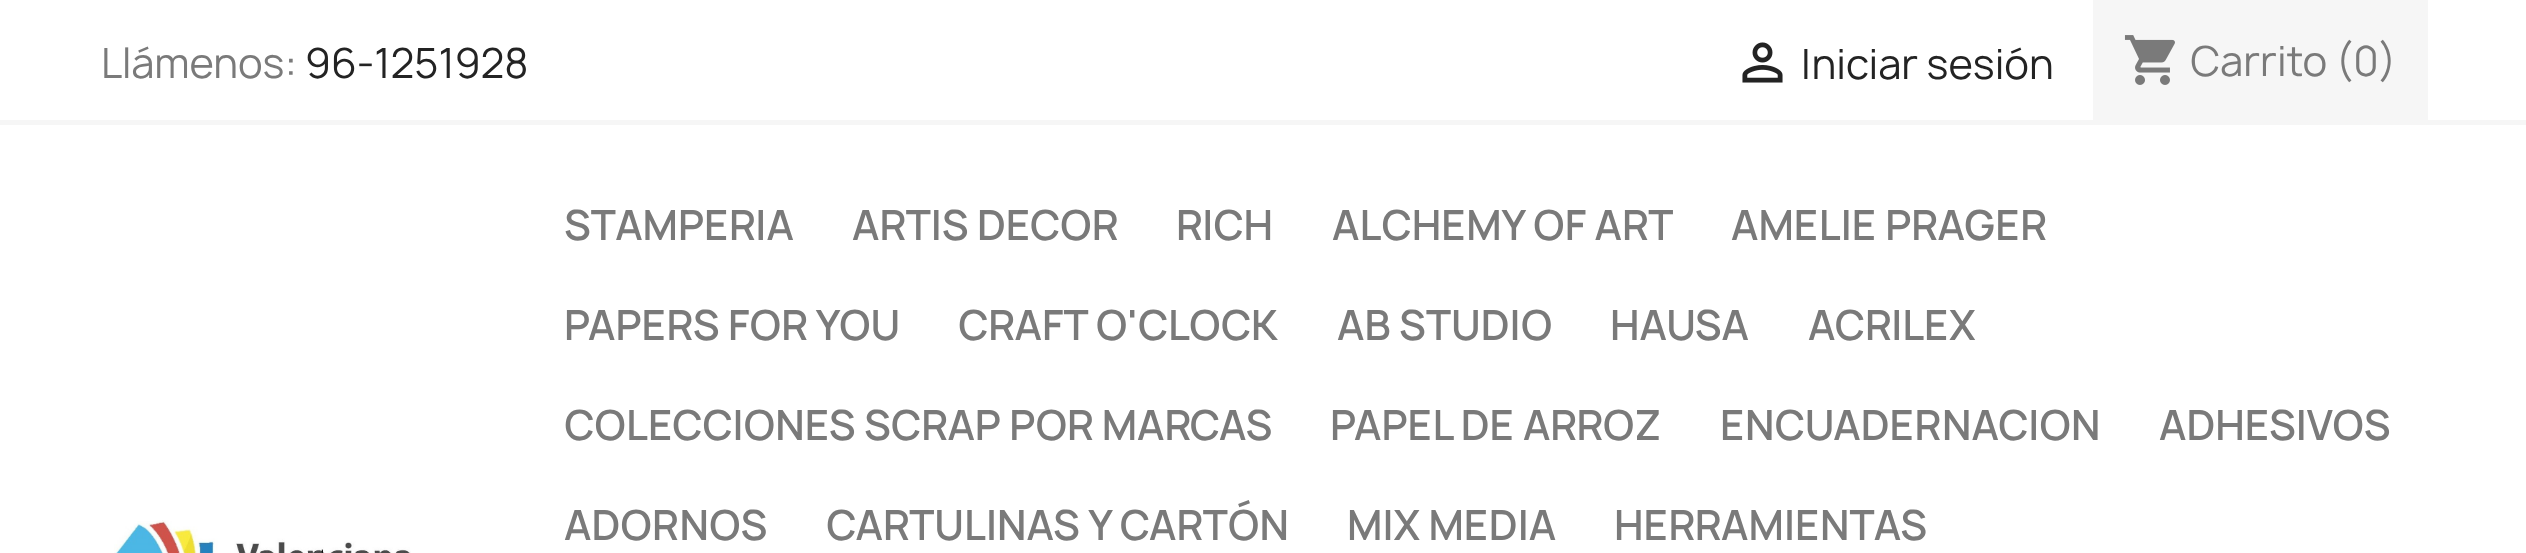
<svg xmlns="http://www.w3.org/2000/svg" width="2526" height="553">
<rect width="100%" height="100%" fill="#fff"/>
<rect y="120" width="2526" height="5" fill="#f6f6f6"/>
<text x="101" y="78" style="font-family:Manrope;font-size:40px;fill:#7a7a7a">Llámenos:</text>
<text x="305" y="78" style="font-family:Manrope;font-size:40px;fill:#232323">96-1251928</text>
<image x="1742" y="42" width="41" height="41" href="media/1.png"/>
<text x="1801" y="79" style="font-family:Manrope;font-size:40px;fill:#232323">Iniciar sesión</text>
<rect x="2093" width="335" height="120" fill="#f6f6f6"/>
<image x="2124" y="35" width="51" height="50" href="media/2.png"/>
<text x="2190" y="76" style="font-family:Manrope;font-size:40px;fill:#7a7a7a">Carrito (0)</text>
<image x="114" y="520" width="297" height="33" href="media/3.png"/>
<text x="564" y="240" style="font-family:Manrope;font-size:40px;font-weight:600;fill:#7a7a7a">STAMPERIA</text>
<text x="852" y="240" style="font-family:Manrope;font-size:40px;font-weight:600;fill:#7a7a7a">ARTIS DECOR</text>
<text x="1176" y="240" style="font-family:Manrope;font-size:40px;font-weight:600;fill:#7a7a7a">RICH</text>
<text x="1332" y="240" style="font-family:Manrope;font-size:40px;font-weight:600;fill:#7a7a7a">ALCHEMY OF ART</text>
<text x="1731" y="240" style="font-family:Manrope;font-size:40px;font-weight:600;fill:#7a7a7a">AMELIE PRAGER</text>
<text x="564" y="340" style="font-family:Manrope;font-size:40px;font-weight:600;fill:#7a7a7a">PAPERS FOR YOU</text>
<text x="958" y="340" style="font-family:Manrope;font-size:40px;font-weight:600;fill:#7a7a7a">CRAFT O'CLOCK</text>
<text x="1337" y="340" style="font-family:Manrope;font-size:40px;font-weight:600;fill:#7a7a7a">AB STUDIO</text>
<text x="1610" y="340" style="font-family:Manrope;font-size:40px;font-weight:600;fill:#7a7a7a">HAUSA</text>
<text x="1808" y="340" style="font-family:Manrope;font-size:40px;font-weight:600;fill:#7a7a7a">ACRILEX</text>
<text x="564" y="440" style="font-family:Manrope;font-size:40px;font-weight:600;fill:#7a7a7a">COLECCIONES SCRAP POR MARCAS</text>
<text x="1330" y="440" style="font-family:Manrope;font-size:40px;font-weight:600;fill:#7a7a7a">PAPEL DE ARROZ</text>
<text x="1720" y="440" style="font-family:Manrope;font-size:40px;font-weight:600;fill:#7a7a7a">ENCUADERNACION</text>
<text x="2159" y="440" style="font-family:Manrope;font-size:40px;font-weight:600;fill:#7a7a7a">ADHESIVOS</text>
<text x="564" y="540" style="font-family:Manrope;font-size:40px;font-weight:600;fill:#7a7a7a">ADORNOS</text>
<text x="826" y="540" style="font-family:Manrope;font-size:40px;font-weight:600;fill:#7a7a7a">CARTULINAS Y CARTÓN</text>
<text x="1347" y="540" style="font-family:Manrope;font-size:40px;font-weight:600;fill:#7a7a7a">MIX MEDIA</text>
<text x="1614" y="540" style="font-family:Manrope;font-size:40px;font-weight:600;fill:#7a7a7a">HERRAMIENTAS</text>
</svg>
